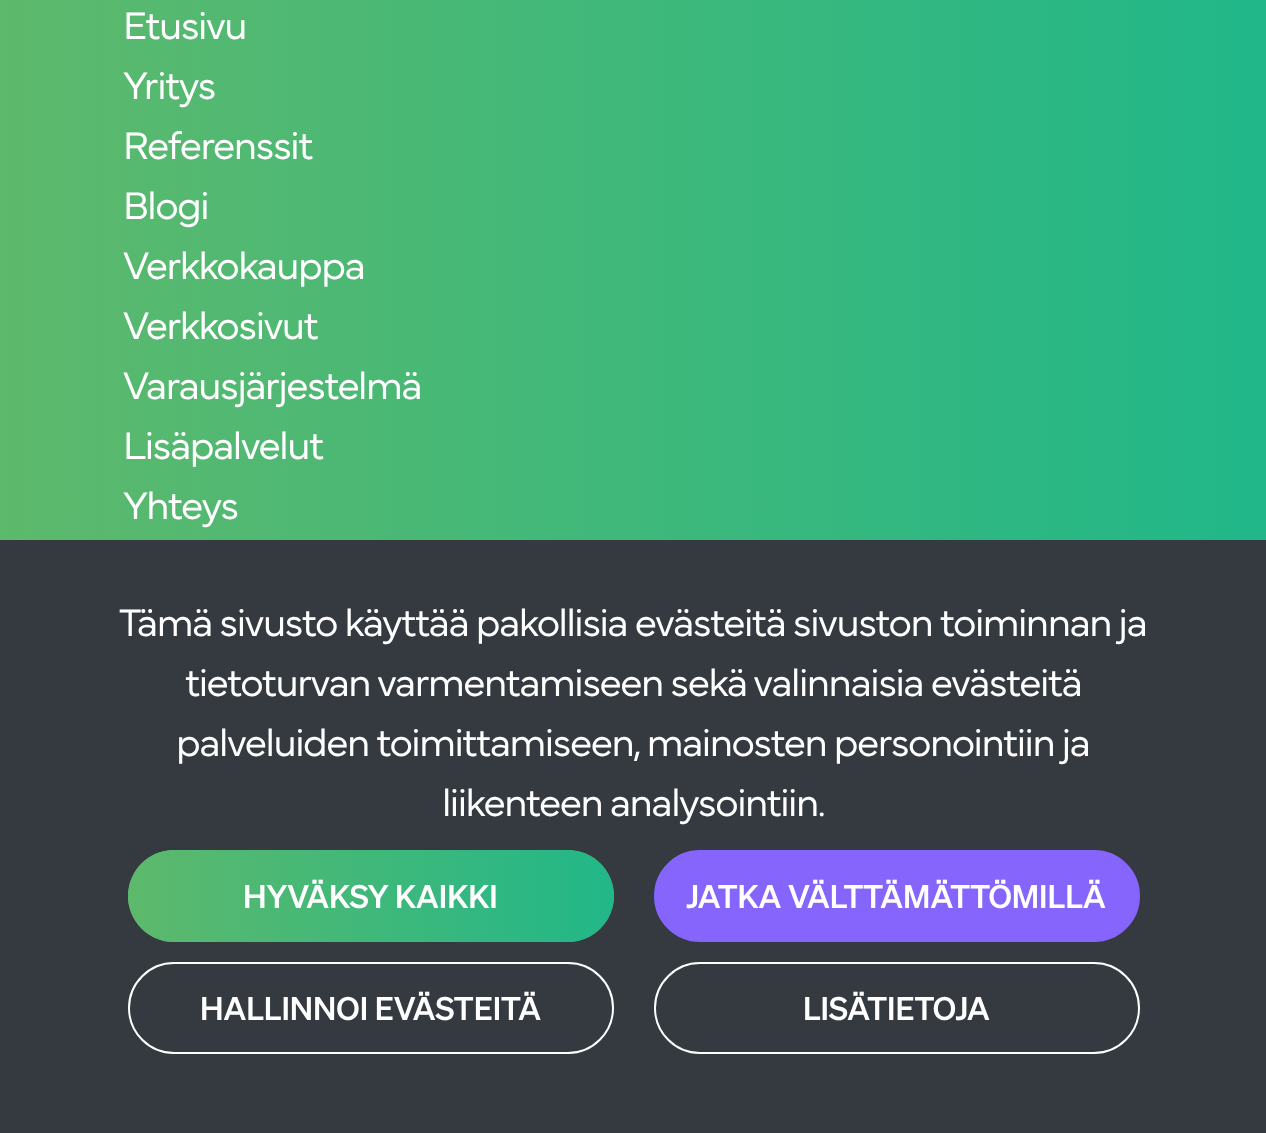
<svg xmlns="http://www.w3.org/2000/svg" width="1266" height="1133">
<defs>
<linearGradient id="g1" gradientUnits="userSpaceOnUse" x1="0" y1="640" x2="1266" y2="640"><stop offset="0" stop-color="#5db96c"/><stop offset="1" stop-color="#21b789"/></linearGradient>
<clipPath id="clip1"><rect x="128" y="850" width="486" height="92" rx="46"/></clipPath>
<linearGradient id="g2" gradientUnits="userSpaceOnUse" x1="-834" y1="896" x2="130" y2="896"><stop offset="0" stop-color="#5db96c"/><stop offset="0.51" stop-color="#21b789"/><stop offset="1" stop-color="#5db96c"/></linearGradient>
<linearGradient id="g3" gradientUnits="userSpaceOnUse" x1="130" y1="896" x2="1094" y2="896"><stop offset="0" stop-color="#5db96c"/><stop offset="0.51" stop-color="#21b789"/><stop offset="1" stop-color="#5db96c"/></linearGradient>
</defs>
<rect width="100%" height="100%" fill="#fff"/>
<rect width="1266" height="540" fill="url(#g1)"/>
<text x="123" y="39" style="font-family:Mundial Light;font-size:40px;font-weight:300;letter-spacing:-1.5px;fill:#fff">Etusivu</text>
<text x="123" y="99" style="font-family:Mundial Light;font-size:40px;font-weight:300;letter-spacing:-1.5px;fill:#fff">Yritys</text>
<text x="123" y="159" style="font-family:Mundial Light;font-size:40px;font-weight:300;letter-spacing:-1.5px;fill:#fff">Referenssit</text>
<text x="123" y="219" style="font-family:Mundial Light;font-size:40px;font-weight:300;letter-spacing:-1.5px;fill:#fff">Blogi</text>
<text x="123" y="279" style="font-family:Mundial Light;font-size:40px;font-weight:300;letter-spacing:-1.5px;fill:#fff">Verkkokauppa</text>
<text x="123" y="339" style="font-family:Mundial Light;font-size:40px;font-weight:300;letter-spacing:-1.5px;fill:#fff">Verkkosivut</text>
<text x="123" y="399" style="font-family:Mundial Light;font-size:40px;font-weight:300;letter-spacing:-1.5px;fill:#fff">Varausjärjestelmä</text>
<text x="123" y="459" style="font-family:Mundial Light;font-size:40px;font-weight:300;letter-spacing:-1.5px;fill:#fff">Lisäpalvelut</text>
<text x="123" y="519" style="font-family:Mundial Light;font-size:40px;font-weight:300;letter-spacing:-1.5px;fill:#fff">Yhteys</text>
<rect y="540" width="1266" height="593" fill="#343a40"/>
<text x="119" y="636" style="font-family:Mundial Light;font-size:40px;font-weight:300;letter-spacing:-1.5px;fill:#fff">Tämä sivusto käyttää pakollisia evästeitä sivuston toiminnan ja</text>
<text x="185" y="696" style="font-family:Mundial Light;font-size:40px;font-weight:300;letter-spacing:-1.5px;fill:#fff">tietoturvan varmentamiseen sekä valinnaisia evästeitä</text>
<text x="176" y="756" style="font-family:Mundial Light;font-size:40px;font-weight:300;letter-spacing:-1.5px;fill:#fff">palveluiden toimittamiseen, mainosten personointiin ja</text>
<text x="442" y="816" style="font-family:Mundial Light;font-size:40px;font-weight:300;letter-spacing:-1.5px;fill:#fff">liikenteen analysointiin.</text>
<rect x="128" y="850" width="486" height="92" rx="46" fill="#5db96c"/>
<g clip-path="url(#clip1)">
<rect x="128" y="882" width="2" height="28" fill="url(#g2)"/>
<path d="M130 850h438c25.5 0 46 20.5 46 46c0 25.5-20.5 46-46 46h-438z" fill="url(#g3)"/>
</g>
<text x="243" y="908" style="font-family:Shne;font-size:32px;font-weight:500;fill:#fff">HYVÄKSY KAIKKI</text>
<rect x="655" y="851" width="484" height="90" rx="45" fill="#8665fd" stroke="#8665fd" stroke-width="2"/>
<text x="686" y="908" style="font-family:Shne;font-size:32px;font-weight:500;fill:#fff">JATKA VÄLTTÄMÄTTÖMILLÄ</text>
<rect x="129" y="963" width="484" height="90" rx="45" fill="none" stroke="#fff" stroke-width="2"/>
<text x="200" y="1020" style="font-family:Shne;font-size:32px;font-weight:500;fill:#fff">HALLINNOI EVÄSTEITÄ</text>
<rect x="655" y="963" width="484" height="90" rx="45" fill="none" stroke="#fff" stroke-width="2"/>
<text x="803" y="1020" style="font-family:Shne;font-size:32px;font-weight:500;fill:#fff">LISÄTIETOJA</text>
</svg>
